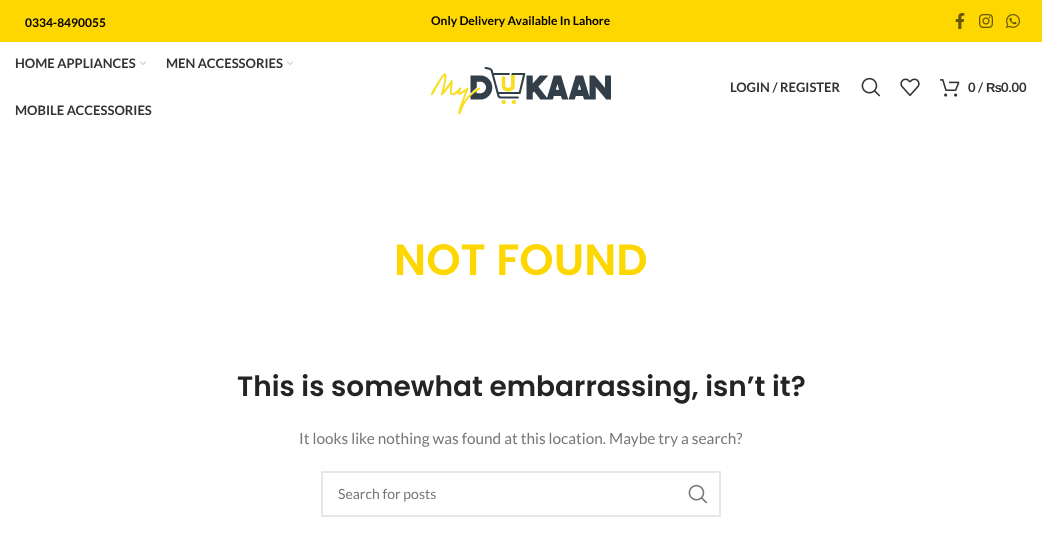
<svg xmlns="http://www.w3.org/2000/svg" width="1042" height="551">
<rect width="100%" height="100%" fill="#fff"/>
<rect width="1042" height="42" fill="#fed700"/>
<text x="25" y="27" style="font-family:Lato;font-size:12px;font-weight:bold;fill:#000">0334-8490055</text>
<text x="431" y="25" style="font-family:Lato;font-size:12px;font-weight:bold;fill:#000">Only Delivery Available In Lahore</text>
<image x="955" y="13" width="10" height="16" href="media/1.png"/>
<image x="979" y="14" width="14" height="14" href="media/2.png"/>
<image x="1006" y="14" width="14" height="14" href="media/3.png"/>
<text x="15" y="68" style="font-family:Lato;font-size:13px;font-weight:bold;fill:#333">HOME APPLIANCES</text>
<image x="140" y="61" width="6" height="4" href="media/4.png"/>
<text x="166" y="68" style="font-family:Lato;font-size:13px;font-weight:bold;fill:#333">MEN ACCESSORIES</text>
<image x="287" y="61" width="6" height="4" href="media/4.png"/>
<text x="15" y="115" style="font-family:Lato;font-size:13px;font-weight:bold;fill:#333">MOBILE ACCESSORIES</text>
<image x="431" y="67" width="180" height="47" href="media/5.png"/>
<text x="730" y="92" style="font-family:Lato;font-size:13px;font-weight:bold;fill:#333">LOGIN / REGISTER</text>
<image x="861" y="77" width="20" height="20" href="media/6.png"/>
<image x="900" y="78" width="20" height="18" href="media/7.png"/>
<image x="940" y="79" width="20" height="18" href="media/8.png"/>
<text x="968" y="92" style="font-family:Lato;font-size:13px;font-weight:bold;fill:#333">0 /</text>
<text x="986" y="92" style="font-family:Liberation Sans;font-size:13px;font-weight:bold;fill:#333">₨</text>
<text x="1001" y="92" style="font-family:Lato;font-size:13px;font-weight:bold;fill:#333">0.00</text>
<text x="394" y="275" style="font-family:Poppins;font-size:43.75px;font-weight:600;fill:#fed700">NOT FOUND</text>
<text x="237" y="396" style="font-family:Poppins;font-size:28px;font-weight:600;fill:#242424">This is somewhat embarrassing, isn’t it?</text>
<text x="299" y="444" style="font-family:Lato;font-size:15.4px;fill:#777">It looks like nothing was found at this location. Maybe try a search?</text>
<rect x="322" y="472" width="398" height="44" fill="none" stroke="#e6e6e6" stroke-width="2"/>
<text x="338" y="499" style="font-family:Lato;font-size:14px;fill:#777">Search for posts</text>
<image x="688" y="484" width="20" height="20" href="media/9.png"/>
</svg>
